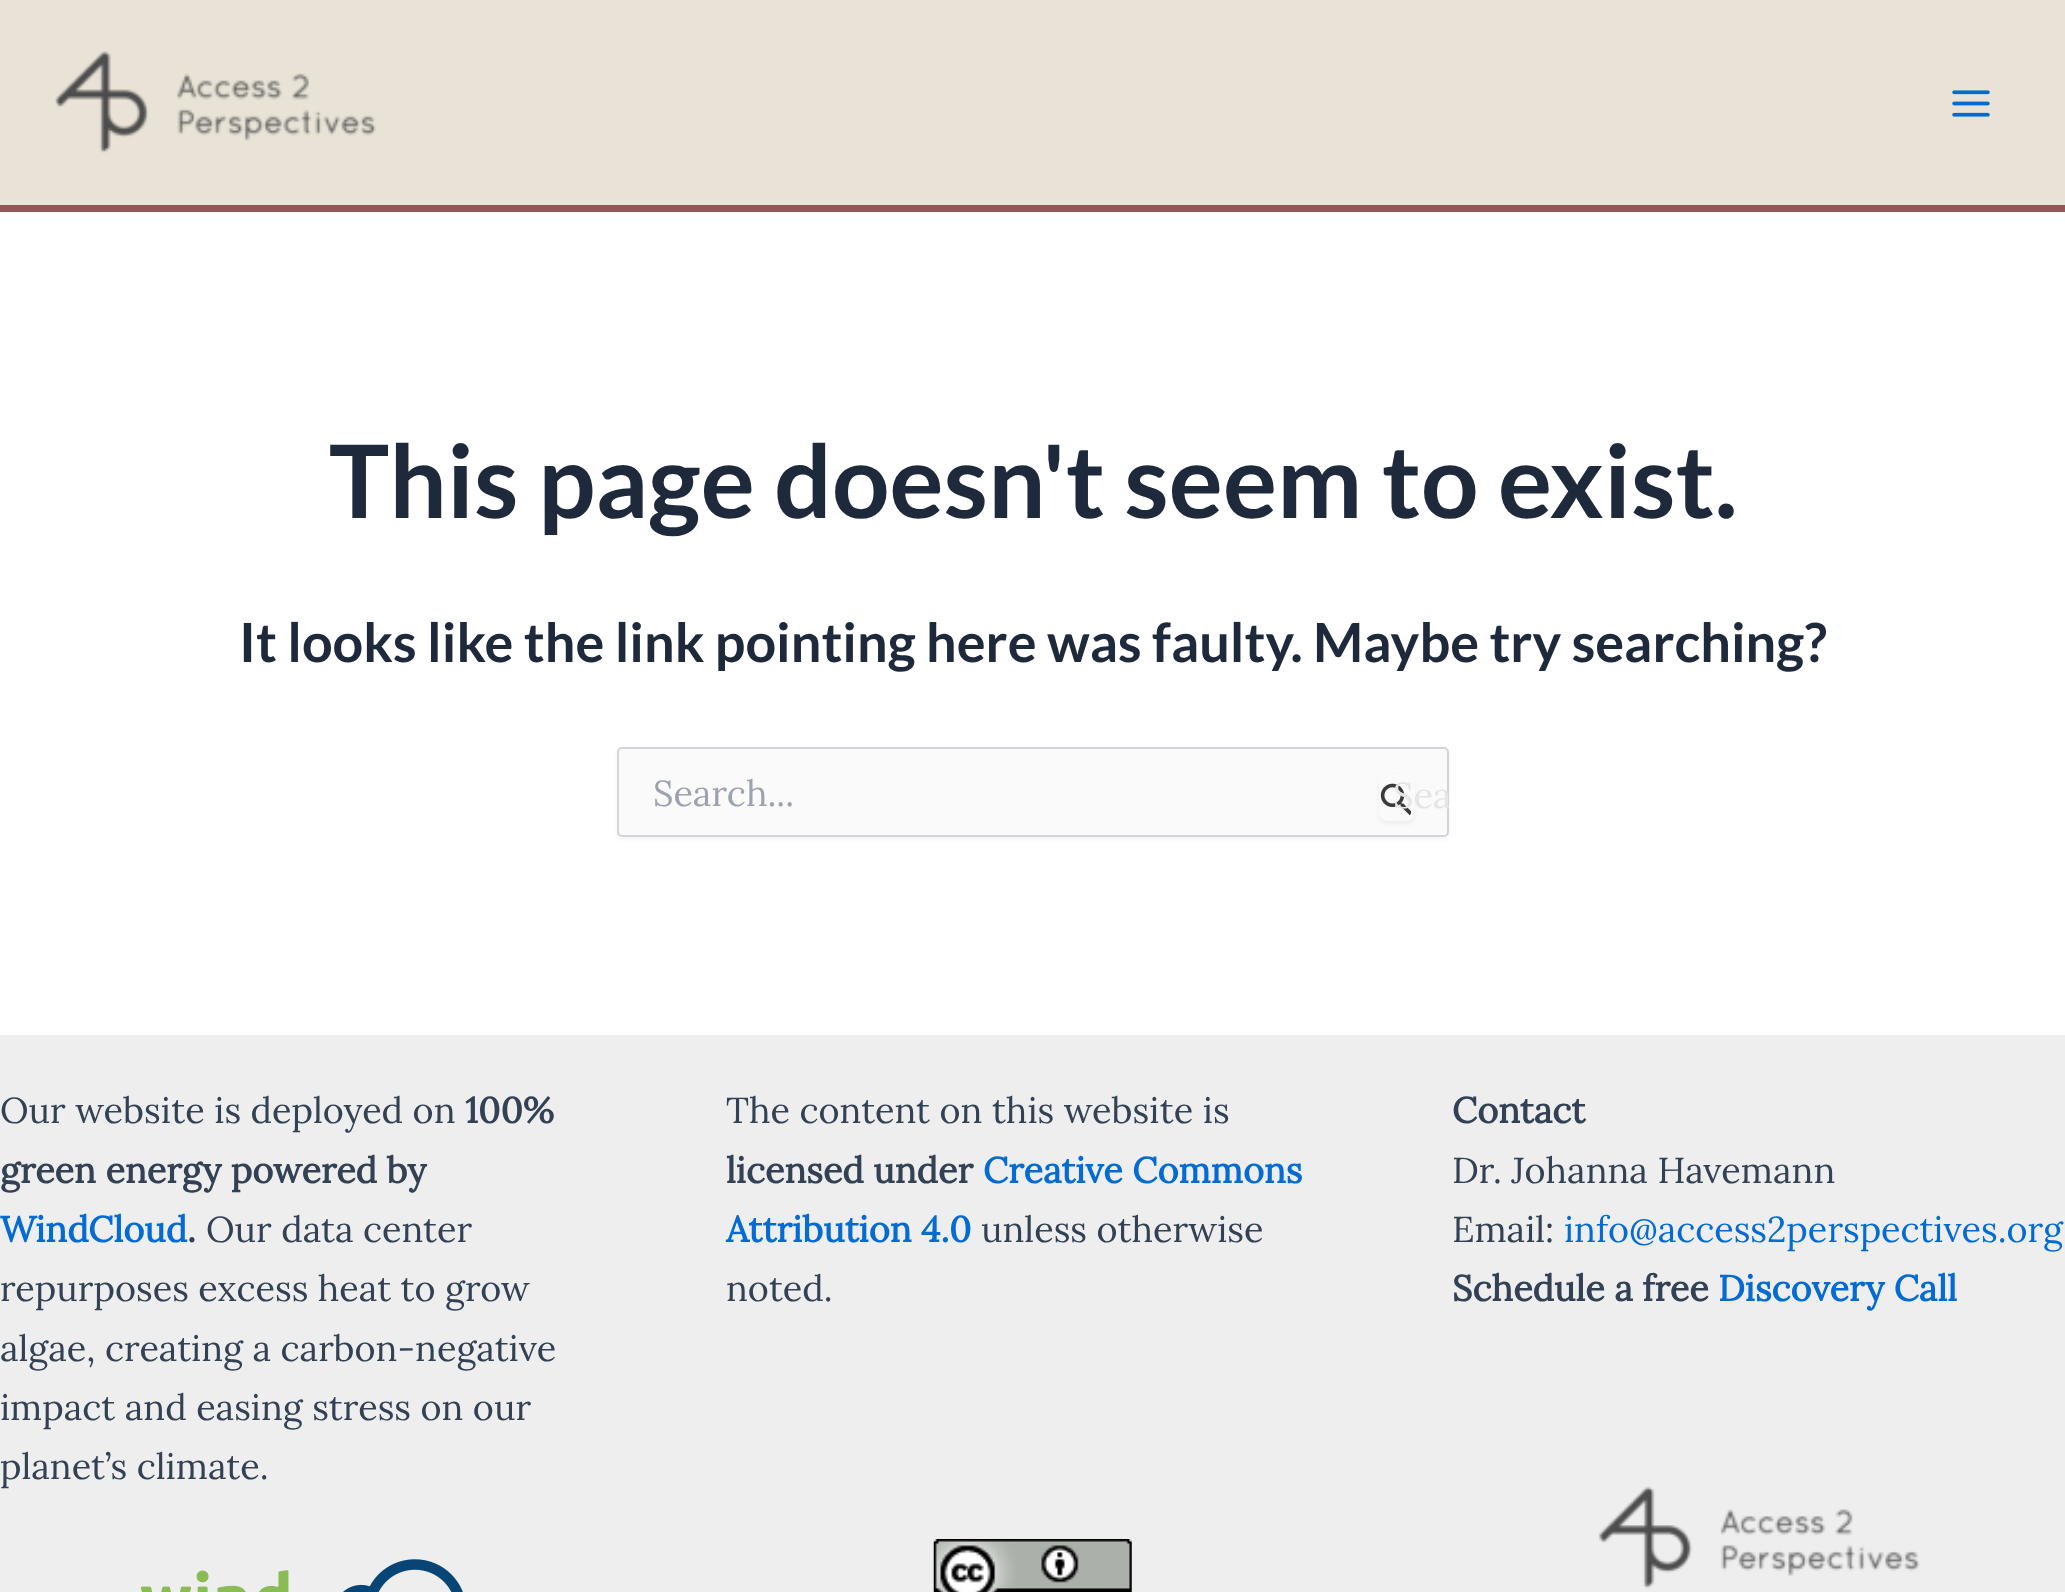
<svg xmlns="http://www.w3.org/2000/svg" width="2065" height="1592">
<defs>
<clipPath id="clip1"><path d="M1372 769h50v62h-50zm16 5h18c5 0 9 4 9 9v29c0 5-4 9-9 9h-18c-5 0-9-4-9-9v-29c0-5 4-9 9-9z" clip-rule="evenodd"/></clipPath>
<clipPath id="clip2"><rect x="1348" y="747" width="101" height="95" rx="5"/></clipPath>
</defs>
<rect width="100%" height="100%" fill="#fff"/>
<rect width="2065" height="205" fill="#e9e3d7"/>
<rect y="205" width="2065" height="7" fill="#915656"/>
<image x="55" y="51" width="322" height="102" href="media/1.png"/>
<image x="1952" y="90" width="38" height="27" href="media/2.png"/>
<text x="329" y="518" style="font-family:Lato;font-size:101.25px;font-weight:bold;fill:#1e293b">This page doesn't seem to exist.</text>
<text x="239" y="662" style="font-family:Lato;font-size:54px;font-weight:bold;fill:#1e293b">It looks like the link pointing here was faulty. Maybe try searching?</text>
<rect x="617" y="749" width="832" height="90" rx="5" fill="#0000000d" filter="blur(2px)"/>
<rect x="618" y="748" width="830" height="88" rx="4" fill="#fafafa" stroke="#d1d5db" stroke-width="2"/>
<text x="653" y="806" style="font-family:Lora;font-size:36px;fill:#9ca3af">Search...</text>
<g clip-path="url(#clip1)">
<rect x="1379" y="776" width="36" height="48" rx="9" fill="#0000000d" filter="blur(2px)"/>
</g>
<image x="1380" y="783" width="31" height="33" href="media/3.png"/>
<g clip-path="url(#clip2)">
<text x="1393" y="808" style="font-family:Lora;font-size:36px;fill:#e5e5e5">Sea</text>
</g>
<rect y="1035" width="2065" height="557" fill="#eee"/>
<text x="0" y="1123" style="font-family:Lora;font-size:36px;fill:#334155">Our website is deployed on</text>
<text x="465" y="1123" style="font-family:Lora;font-size:36px;font-weight:bold;fill:#334155">100%</text>
<text x="0" y="1183" style="font-family:Lora;font-size:36px;font-weight:bold;fill:#334155">green energy powered by</text>
<text x="0" y="1242" style="font-family:Lora;font-size:36px;font-weight:bold;fill:#046bd2">WindCloud</text>
<text x="187" y="1242" style="font-family:Lora;font-size:36px;font-weight:bold;fill:#334155">.</text>
<text x="206" y="1242" style="font-family:Lora;font-size:36px;fill:#334155">Our data center</text>
<text x="0" y="1301" style="font-family:Lora;font-size:36px;fill:#334155">repurposes excess heat to grow</text>
<text x="0" y="1361" style="font-family:Lora;font-size:36px;fill:#334155">algae, creating a carbon-negative</text>
<text x="0" y="1420" style="font-family:Lora;font-size:36px;fill:#334155">impact and easing stress on our</text>
<text x="0" y="1479" style="font-family:Lora;font-size:36px;fill:#334155">planet’s climate.</text>
<image x="140" y="1559" width="323" height="33" href="media/4.png"/>
<text x="726" y="1123" style="font-family:Lora;font-size:36px;fill:#334155">The content on this website is</text>
<text x="726" y="1183" style="font-family:Lora;font-size:36px;font-weight:bold;fill:#334155">licensed under</text>
<text x="983" y="1183" style="font-family:Lora;font-size:36px;font-weight:bold;fill:#046bd2">Creative Commons</text>
<text x="726" y="1242" style="font-family:Lora;font-size:36px;font-weight:bold;fill:#046bd2">Attribution 4.0</text>
<text x="981" y="1242" style="font-family:Lora;font-size:36px;fill:#334155">unless otherwise</text>
<text x="726" y="1301" style="font-family:Lora;font-size:36px;fill:#334155">noted.</text>
<image x="933" y="1539" width="199" height="53" href="media/5.png"/>
<text x="1452" y="1123" style="font-family:Lora;font-size:36px;font-weight:bold;fill:#334155">Contact</text>
<text x="1452" y="1183" style="font-family:Lora;font-size:36px;fill:#334155">Dr. Johanna Havemann</text>
<text x="1452" y="1242" style="font-family:Lora;font-size:36px;fill:#334155">Email:</text>
<text x="1564" y="1242" style="font-family:Lora;font-size:36px;fill:#046bd2">info@access2perspectives.org</text>
<text x="1452" y="1301" style="font-family:Lora;font-size:36px;font-weight:bold;fill:#334155">Schedule a free</text>
<text x="1718" y="1301" style="font-family:Lora;font-size:36px;font-weight:bold;fill:#046bd2">Discovery Call</text>
<image x="1598" y="1486" width="322" height="103" href="media/6.png"/>
</svg>
